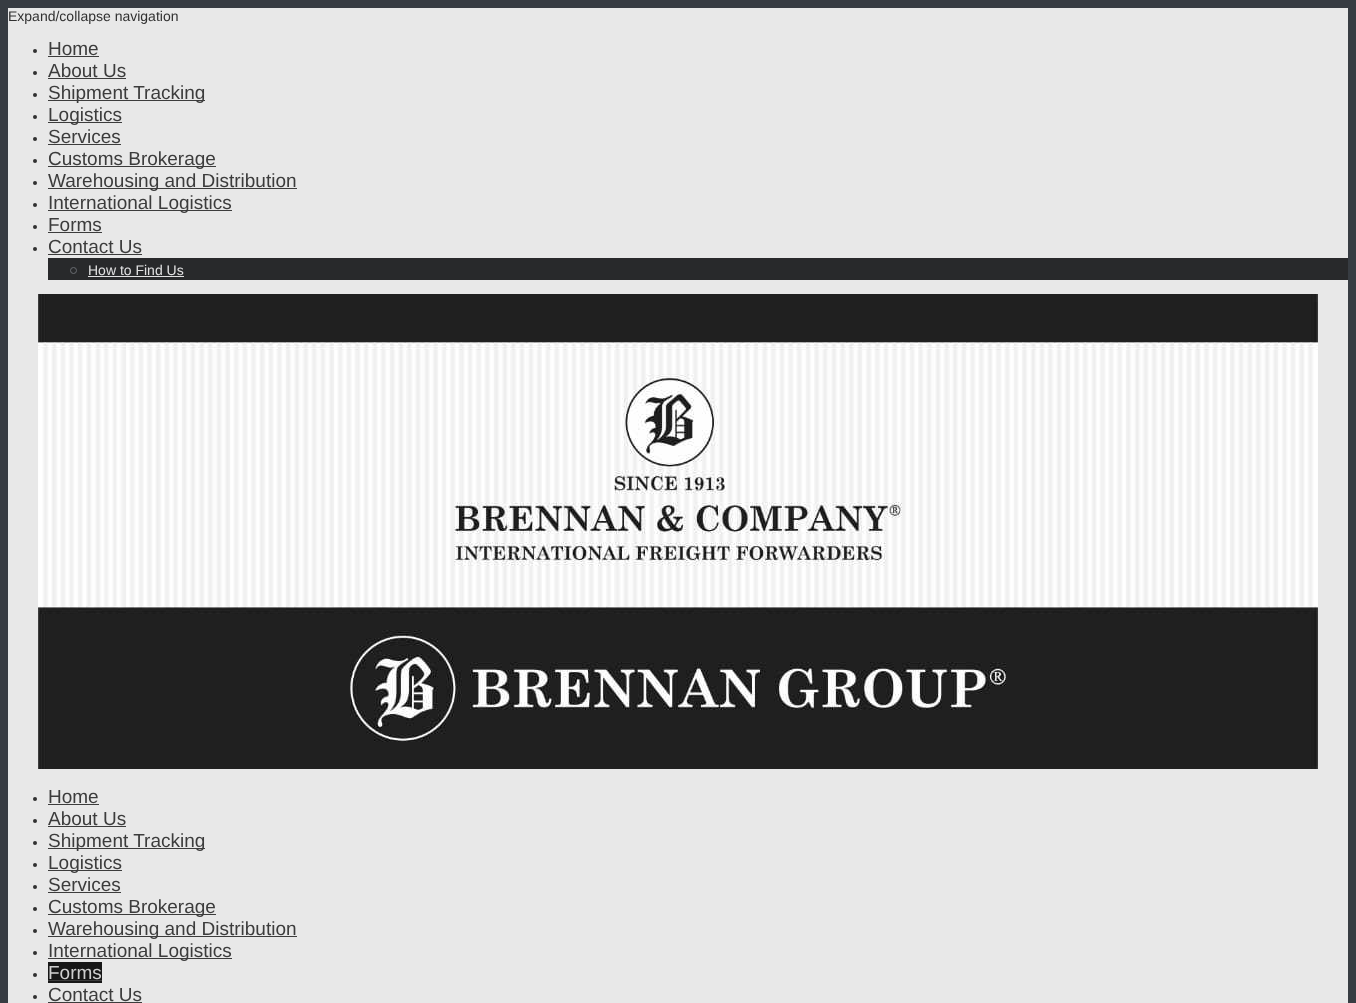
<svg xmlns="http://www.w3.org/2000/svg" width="1356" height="1003">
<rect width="100%" height="100%" fill="#373c42"/>
<rect x="8" y="8" width="1340" height="995" fill="#e8e8e8"/>
<text x="8" y="21" style="font-family:Liberation Sans;font-size:14px;fill:#303030">Expand/collapse navigation</text>
<circle cx="35" cy="51" r="2" fill="#303030"/>
<text x="48" y="55" style="font-family:Liberation Sans;font-size:19px;fill:#3c3c3c">Home</text>
<rect x="48" y="56" width="51" height="1" fill="#3c3c3c"/>
<circle cx="35" cy="73" r="2" fill="#303030"/>
<text x="48" y="77" style="font-family:Liberation Sans;font-size:19px;fill:#3c3c3c">About Us</text>
<rect x="48" y="78" width="78" height="1" fill="#3c3c3c"/>
<circle cx="35" cy="95" r="2" fill="#303030"/>
<rect x="48" y="100" width="157" height="1" fill="#3c3c3c"/>
<text x="48" y="99" style="font-family:Liberation Sans;font-size:19px;fill:#3c3c3c">Shipment Tracking</text>
<circle cx="35" cy="117" r="2" fill="#303030"/>
<rect x="48" y="122" width="74" height="1" fill="#3c3c3c"/>
<text x="48" y="121" style="font-family:Liberation Sans;font-size:19px;fill:#3c3c3c">Logistics</text>
<circle cx="35" cy="139" r="2" fill="#303030"/>
<text x="48" y="143" style="font-family:Liberation Sans;font-size:19px;fill:#3c3c3c">Services</text>
<rect x="48" y="144" width="73" height="1" fill="#3c3c3c"/>
<circle cx="35" cy="161" r="2" fill="#303030"/>
<rect x="48" y="166" width="168" height="1" fill="#3c3c3c"/>
<text x="48" y="165" style="font-family:Liberation Sans;font-size:19px;fill:#3c3c3c">Customs Brokerage</text>
<circle cx="35" cy="183" r="2" fill="#303030"/>
<rect x="48" y="188" width="249" height="1" fill="#3c3c3c"/>
<text x="48" y="187" style="font-family:Liberation Sans;font-size:19px;fill:#3c3c3c">Warehousing and Distribution</text>
<circle cx="35" cy="205" r="2" fill="#303030"/>
<rect x="48" y="210" width="184" height="1" fill="#3c3c3c"/>
<text x="48" y="209" style="font-family:Liberation Sans;font-size:19px;fill:#3c3c3c">International Logistics</text>
<circle cx="35" cy="227" r="2" fill="#303030"/>
<text x="48" y="231" style="font-family:Liberation Sans;font-size:19px;fill:#3c3c3c">Forms</text>
<rect x="48" y="232" width="54" height="1" fill="#3c3c3c"/>
<circle cx="35" cy="249" r="2" fill="#303030"/>
<text x="48" y="253" style="font-family:Liberation Sans;font-size:19px;fill:#3c3c3c">Contact Us</text>
<rect x="48" y="254" width="94" height="1" fill="#3c3c3c"/>
<rect x="48" y="258" width="1300" height="22" fill="#28292b"/>
<circle cx="73.5" cy="270.5" r="3" fill="none" stroke="#6a6d72"/>
<text x="88" y="275" style="font-family:Liberation Sans;font-size:14px;fill:#e1e1e2">How to Find Us</text>
<rect x="88" y="276" width="96" height="1" fill="#e1e1e2"/>
<image x="38" y="294" width="1280" height="475" href="media/1.png"/>
<circle cx="35" cy="799" r="2" fill="#303030"/>
<text x="48" y="803" style="font-family:Liberation Sans;font-size:19px;fill:#3c3c3c">Home</text>
<rect x="48" y="804" width="51" height="1" fill="#3c3c3c"/>
<circle cx="35" cy="821" r="2" fill="#303030"/>
<text x="48" y="825" style="font-family:Liberation Sans;font-size:19px;fill:#3c3c3c">About Us</text>
<rect x="48" y="826" width="78" height="1" fill="#3c3c3c"/>
<circle cx="35" cy="843" r="2" fill="#303030"/>
<rect x="48" y="848" width="157" height="1" fill="#3c3c3c"/>
<text x="48" y="847" style="font-family:Liberation Sans;font-size:19px;fill:#3c3c3c">Shipment Tracking</text>
<circle cx="35" cy="865" r="2" fill="#303030"/>
<rect x="48" y="870" width="74" height="1" fill="#3c3c3c"/>
<text x="48" y="869" style="font-family:Liberation Sans;font-size:19px;fill:#3c3c3c">Logistics</text>
<circle cx="35" cy="887" r="2" fill="#303030"/>
<text x="48" y="891" style="font-family:Liberation Sans;font-size:19px;fill:#3c3c3c">Services</text>
<rect x="48" y="892" width="73" height="1" fill="#3c3c3c"/>
<circle cx="35" cy="909" r="2" fill="#303030"/>
<rect x="48" y="914" width="168" height="1" fill="#3c3c3c"/>
<text x="48" y="913" style="font-family:Liberation Sans;font-size:19px;fill:#3c3c3c">Customs Brokerage</text>
<circle cx="35" cy="931" r="2" fill="#303030"/>
<rect x="48" y="936" width="249" height="1" fill="#3c3c3c"/>
<text x="48" y="935" style="font-family:Liberation Sans;font-size:19px;fill:#3c3c3c">Warehousing and Distribution</text>
<circle cx="35" cy="953" r="2" fill="#303030"/>
<rect x="48" y="958" width="184" height="1" fill="#3c3c3c"/>
<text x="48" y="957" style="font-family:Liberation Sans;font-size:19px;fill:#3c3c3c">International Logistics</text>
<circle cx="35" cy="975" r="2" fill="#303030"/>
<rect x="48" y="962" width="54" height="21" fill="#171717"/>
<text x="48" y="979" style="font-family:Liberation Sans;font-size:19px;fill:#cfcfcf">Forms</text>
<rect x="48" y="980" width="54" height="1" fill="#3c3c3c"/>
<circle cx="35" cy="997" r="2" fill="#303030"/>
<text x="48" y="1001" style="font-family:Liberation Sans;font-size:19px;fill:#3c3c3c">Contact Us</text>
<rect x="48" y="1002" width="94" height="1" fill="#3c3c3c"/>
</svg>
